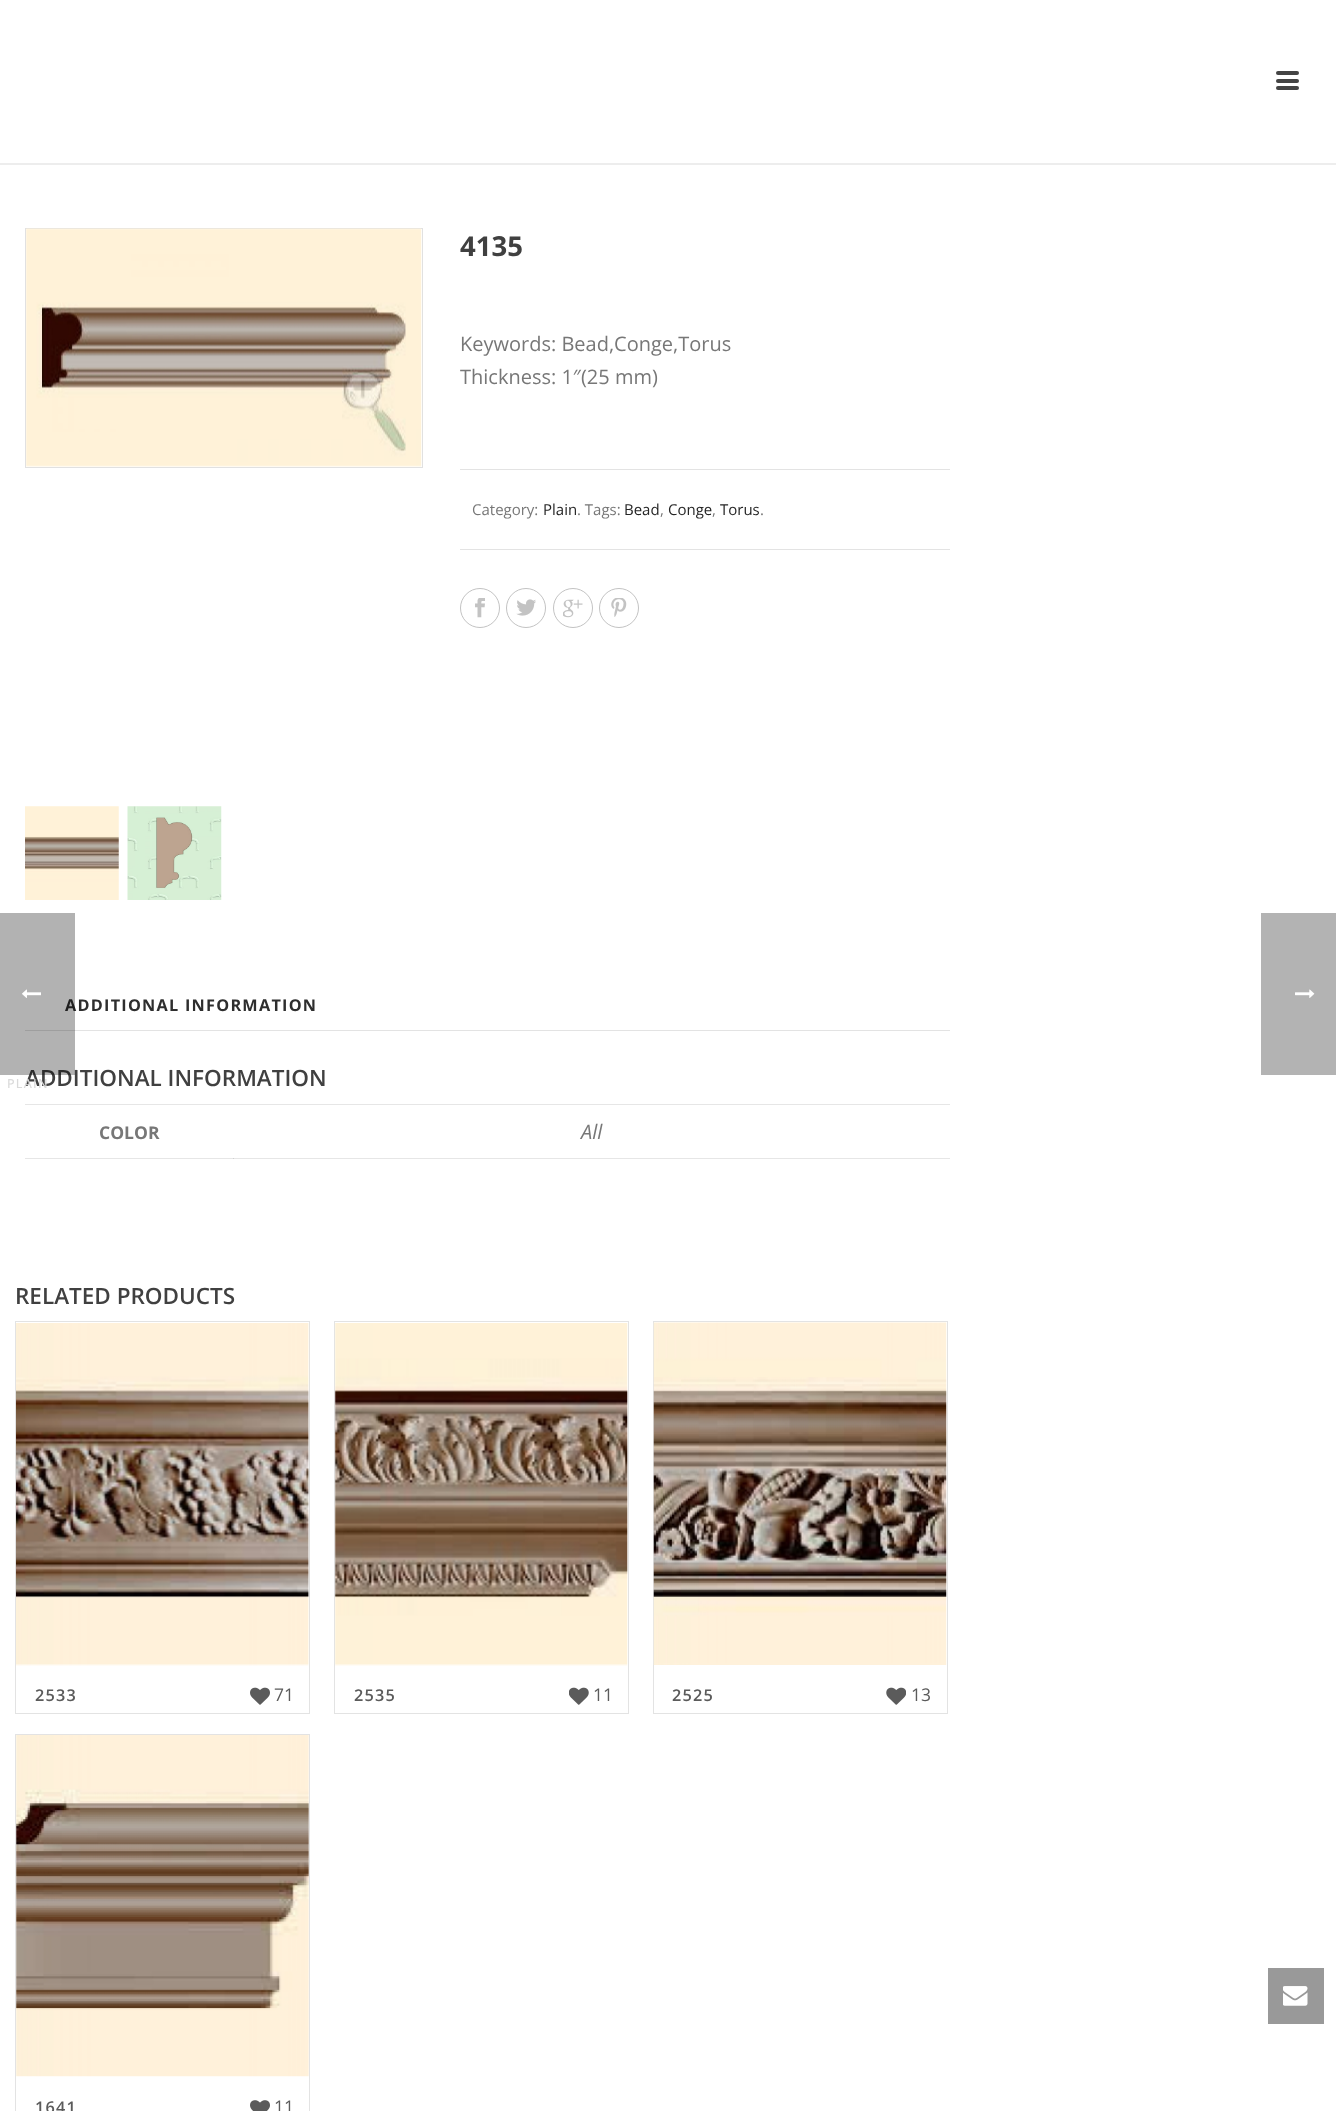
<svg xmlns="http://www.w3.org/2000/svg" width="1336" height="2111">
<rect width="100%" height="100%" fill="#fff"/>
<rect x="25" y="1158" width="925" height="1" fill="#e6e6e6"/>
<rect y="163" width="1336" height="2" fill="#ededed"/>
<rect x="1276" y="71" width="23" height="4" rx="2" fill="#444"/>
<rect x="1276" y="79" width="23" height="4" rx="2" fill="#444"/>
<rect x="1276" y="86" width="23" height="4" rx="2" fill="#444"/>
<rect x="25.5" y="228.5" width="397" height="239" fill="none" stroke="#e1e1e1"/>
<image x="26" y="228" width="396" height="239" href="media/1.png"/>
<image x="25" y="806" width="94" height="94" href="media/2.png"/>
<image x="127" y="806" width="95" height="94" href="media/3.png"/>
<text x="460" y="256" style="font-family:Open Sans;font-size:27.5px;font-weight:bold;fill:#404040">4135</text>
<text x="460" y="351" style="font-family:Open Sans;font-size:20px;fill:#777">Keywords: Bead,Conge,Torus</text>
<text x="460" y="384" style="font-family:Open Sans;font-size:20px;fill:#777">Thickness: 1″(25 mm)</text>
<rect x="460" y="469" width="490" height="1" fill="#e3e3e3"/>
<rect x="460" y="549" width="490" height="1" fill="#e3e3e3"/>
<text x="472" y="515" style="font-family:Open Sans;font-size:15px;fill:#777">Category:</text>
<text x="543" y="515" style="font-family:Open Sans;font-size:15px;fill:#252525">Plain</text>
<text x="577" y="515" style="font-family:Open Sans;font-size:15px;fill:#777">. Tags:</text>
<text x="624" y="515" style="font-family:Open Sans;font-size:15px;fill:#252525">Bead</text>
<text x="660" y="515" style="font-family:Open Sans;font-size:15px;fill:#777">,</text>
<text x="668" y="515" style="font-family:Open Sans;font-size:15px;fill:#252525">Conge</text>
<text x="712" y="515" style="font-family:Open Sans;font-size:15px;fill:#777">,</text>
<text x="720" y="515" style="font-family:Open Sans;font-size:15px;fill:#252525">Torus</text>
<text x="760" y="515" style="font-family:Open Sans;font-size:15px;fill:#777">.</text>
<circle cx="480" cy="608" r="19.5" fill="none" stroke="#c3c3c3"/>
<image x="475" y="598" width="10" height="20" href="media/4.png"/>
<circle cx="526" cy="608" r="19.5" fill="none" stroke="#c3c3c3"/>
<image x="516" y="599" width="20" height="17" href="media/5.png"/>
<circle cx="573" cy="608" r="19.5" fill="none" stroke="#c3c3c3"/>
<image x="563" y="599" width="20" height="19" href="media/6.png"/>
<circle cx="619" cy="608" r="19.5" fill="none" stroke="#c3c3c3"/>
<image x="611" y="598" width="16" height="19" href="media/7.png"/>
<rect x="25" y="1030" width="925" height="1" fill="#e3e3e3"/>
<text x="65" y="1011" style="font-family:Open Sans;font-size:16.25px;font-weight:bold;letter-spacing:1.25px;fill:#2e2e2e">ADDITIONAL INFORMATION</text>
<text x="25" y="1086" style="font-family:Open Sans;font-size:22.5px;font-weight:600;fill:#404040">ADDITIONAL INFORMATION</text>
<rect x="25" y="1104" width="925" height="1" fill="#e6e6e6"/>
<text x="99" y="1139" style="font-family:Open Sans;font-size:17.5px;font-weight:bold;fill:#777">COLOR</text>
<rect x="233" y="1158" width="1" height="1" fill="#cfcfcf"/>
<text x="581" y="1139" style="font-family:Open Sans;font-size:20px;font-style:italic;fill:#777">All</text>
<text x="15" y="1304" style="font-family:Open Sans;font-size:22.5px;font-weight:600;fill:#404040">RELATED PRODUCTS</text>
<rect x="15.5" y="1321.5" width="294" height="392" fill="none" stroke="#e3e3e3"/>
<image x="16" y="1323" width="294" height="343" href="media/8.png"/>
<text x="35" y="1701" style="font-family:Open Sans;font-size:16.25px;font-weight:600;letter-spacing:1.25px;fill:#5b5b5b">2533</text>
<image x="250" y="1687" width="20" height="18" href="media/9.png"/>
<text x="274" y="1701" style="font-family:Open Sans;font-size:17.5px;fill:#5b5b5b">71</text>
<rect x="334.5" y="1321.5" width="294" height="392" fill="none" stroke="#e3e3e3"/>
<image x="334" y="1323" width="294" height="343" href="media/10.png"/>
<text x="354" y="1701" style="font-family:Open Sans;font-size:16.25px;font-weight:600;letter-spacing:1.25px;fill:#5b5b5b">2535</text>
<image x="569" y="1687" width="20" height="18" href="media/11.png"/>
<text x="593" y="1701" style="font-family:Open Sans;font-size:17.5px;fill:#5b5b5b">11</text>
<rect x="653.5" y="1321.5" width="294" height="392" fill="none" stroke="#e3e3e3"/>
<image x="653" y="1322" width="294" height="343" href="media/12.png"/>
<text x="672" y="1701" style="font-family:Open Sans;font-size:16.25px;font-weight:600;letter-spacing:1.25px;fill:#5b5b5b">2525</text>
<image x="886" y="1687" width="20" height="18" href="media/13.png"/>
<text x="911" y="1701" style="font-family:Open Sans;font-size:17.5px;fill:#5b5b5b">13</text>
<rect x="15.5" y="1734.5" width="294" height="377" fill="none" stroke="#e3e3e3"/>
<image x="16" y="1735" width="293" height="342" href="media/14.png"/>
<text x="35" y="2113" style="font-family:Open Sans;font-size:16.25px;font-weight:600;letter-spacing:1.25px;fill:#5b5b5b">1641</text>
<image x="250" y="2100" width="20" height="11" href="media/15.png"/>
<text x="274" y="2113" style="font-family:Open Sans;font-size:17.5px;fill:#5b5b5b">11</text>
<rect x="1261" y="913" width="75" height="162" fill="#b3b3b3"/>
<image x="1295" y="989" width="20" height="9" href="media/16.png"/>
<rect y="913" width="75" height="162" fill="#0000004d"/>
<image x="22" y="989" width="19" height="9" href="media/17.png"/>
<text x="7" y="1088" style="font-family:Open Sans;font-size:12.5px;font-weight:500;letter-spacing:1.25px;fill:#dadada">PLAIN</text>
<rect x="1268" y="1968" width="56" height="56" fill="#999"/>
<image x="1283" y="1986" width="25" height="20" href="media/18.png"/>
</svg>
